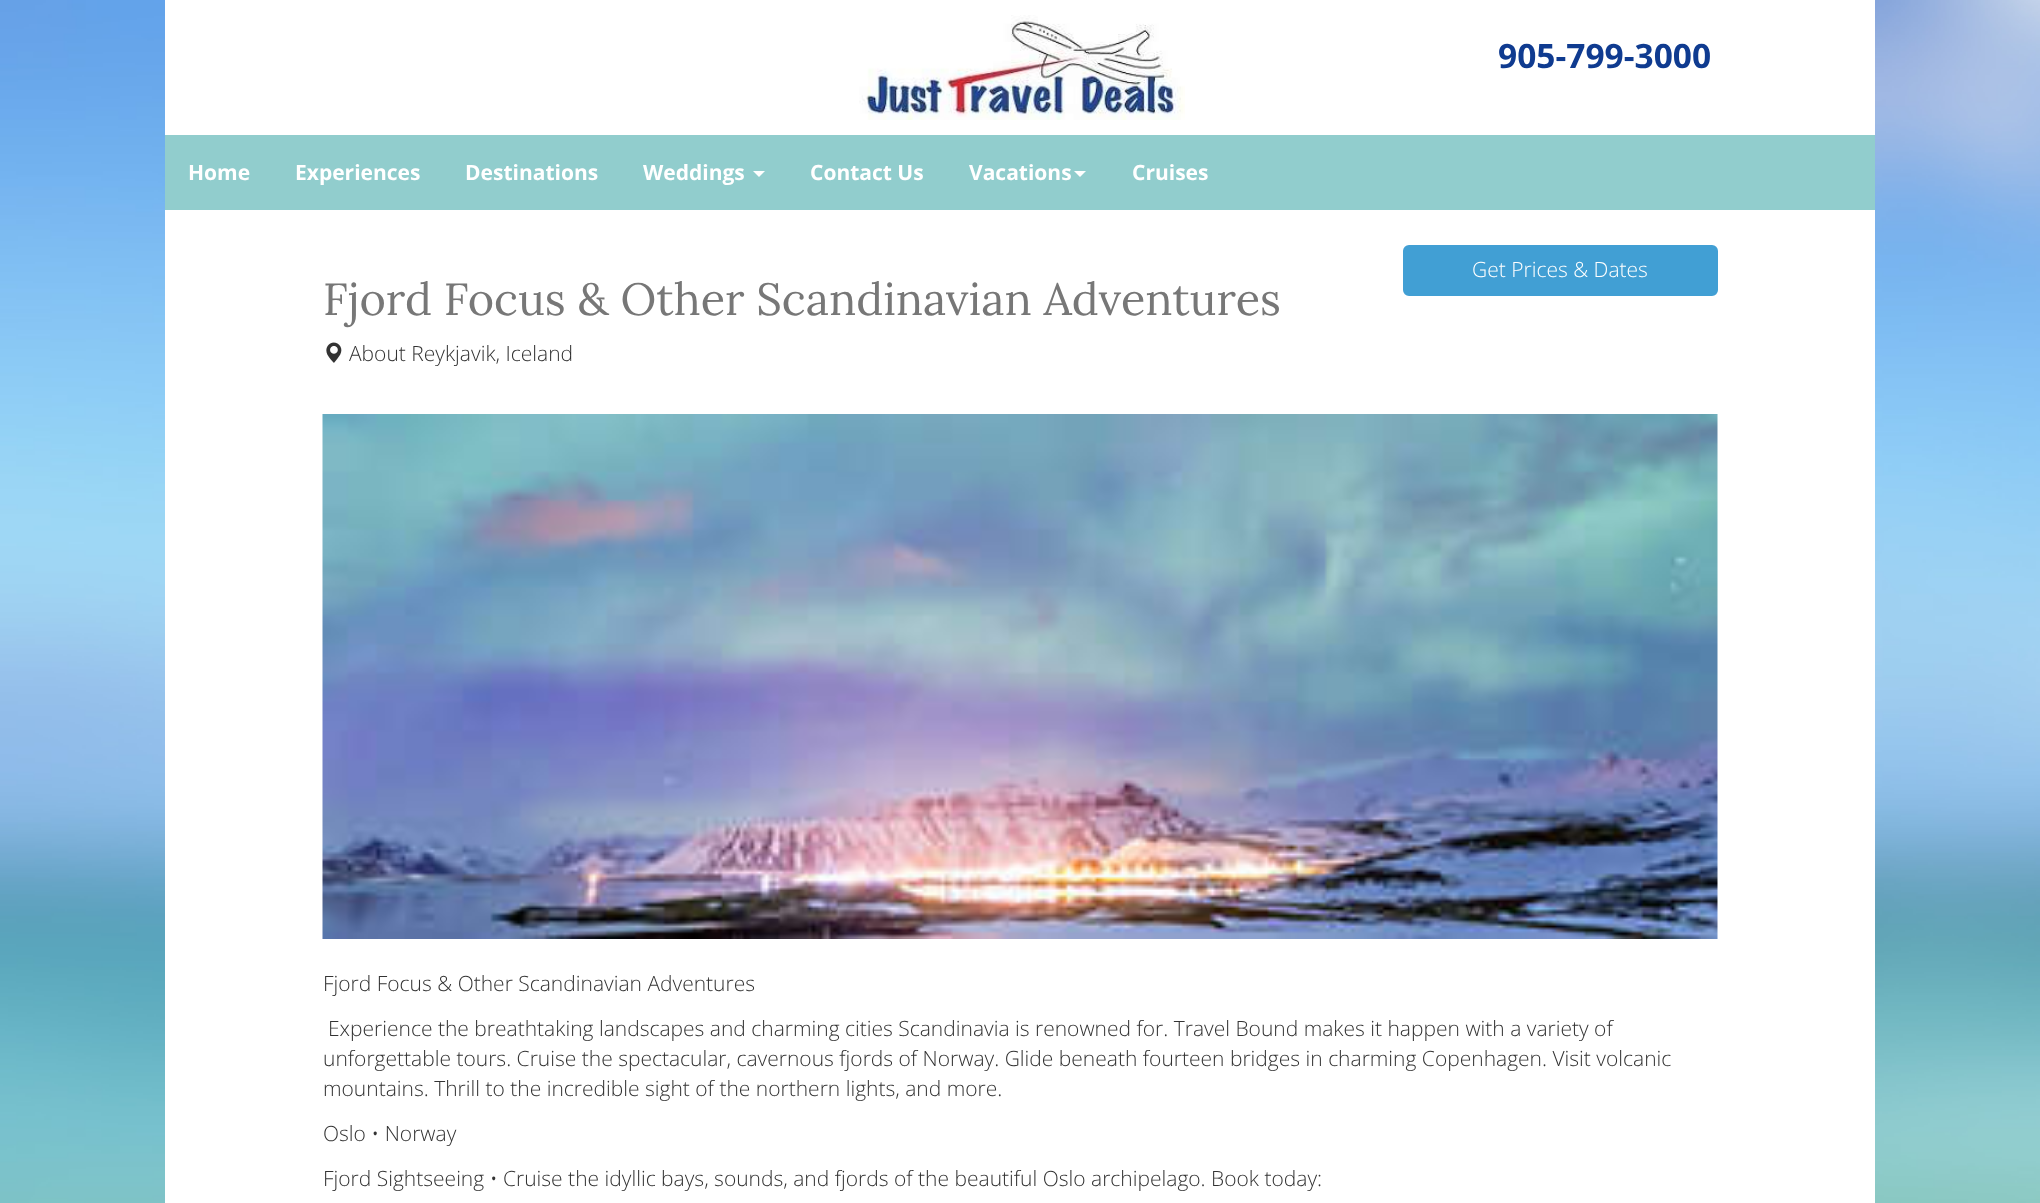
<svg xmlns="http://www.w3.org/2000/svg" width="2040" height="1203">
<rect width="100%" height="100%" fill="#fff"/>
<image x="0" y="0" width="2040" height="1203" href="media/1.png"/>
<rect x="165" width="1710" height="135" fill="#fff"/>
<image x="859" y="15" width="326" height="105" href="media/2.png"/>
<text x="1498" y="68" style="font-family:Open Sans;font-size:33.5px;font-weight:bold;fill:#0f3b90">905-799-3000</text>
<rect x="165" y="135" width="1710" height="75" fill="#91cdcd"/>
<text x="188" y="180" style="font-family:Open Sans;font-size:21px;font-weight:bold;fill:#fff">Home</text>
<text x="295" y="180" style="font-family:Open Sans;font-size:21px;font-weight:bold;fill:#fff">Experiences</text>
<text x="465" y="180" style="font-family:Open Sans;font-size:21px;font-weight:bold;fill:#fff">Destinations</text>
<text x="643" y="180" style="font-family:Open Sans;font-size:21px;font-weight:bold;fill:#fff">Weddings</text>
<path d="M753 171h12l-6 6z" fill="#fff"/>
<text x="810" y="180" style="font-family:Open Sans;font-size:21px;font-weight:bold;fill:#fff">Contact Us</text>
<text x="969" y="180" style="font-family:Open Sans;font-size:21px;font-weight:bold;fill:#fff">Vacations</text>
<path d="M1074 171h12l-6 6z" fill="#fff"/>
<text x="1132" y="180" style="font-family:Open Sans;font-size:21px;font-weight:bold;fill:#fff">Cruises</text>
<rect x="165" y="210" width="1710" height="993" fill="#fff"/>
<rect x="1404" y="246" width="313" height="49" rx="5" fill="#419fd4" stroke="#419fd4" stroke-width="2"/>
<text x="1472" y="277" style="font-family:Open Sans;font-size:21px;font-weight:300;fill:#fff">Get Prices &amp; Dates</text>
<text x="323" y="315" style="font-family:Lora;font-size:45px;fill:#777">Fjord Focus &amp; Other Scandinavian Adventures</text>
<image x="326" y="342" width="16" height="21" href="media/3.png"/>
<text x="349" y="361" style="font-family:Open Sans;font-size:21px;font-weight:300;fill:#333">About Reykjavik, Iceland</text>
<image x="322" y="414" width="1396" height="525" href="media/4.png"/>
<text x="323" y="991" style="font-family:Open Sans;font-size:21px;font-weight:300;fill:#333">Fjord Focus &amp; Other Scandinavian Adventures</text>
<text x="328" y="1036" style="font-family:Open Sans;font-size:21px;font-weight:300;fill:#333">Experience the breathtaking landscapes and charming cities Scandinavia is renowned for. Travel Bound makes it happen with a variety of</text>
<text x="323" y="1066" style="font-family:Open Sans;font-size:21px;font-weight:300;fill:#333">unforgettable tours. Cruise the spectacular, cavernous fjords of Norway. Glide beneath fourteen bridges in charming Copenhagen. Visit volcanic</text>
<text x="323" y="1096" style="font-family:Open Sans;font-size:21px;font-weight:300;fill:#333">mountains. Thrill to the incredible sight of the northern lights, and more.</text>
<text x="323" y="1141" style="font-family:Open Sans;font-size:21px;font-weight:300;fill:#333">Oslo • Norway</text>
<text x="323" y="1186" style="font-family:Open Sans;font-size:21px;font-weight:300;fill:#333">Fjord Sightseeing • Cruise the idyllic bays, sounds, and fjords of the beautiful Oslo archipelago. Book today:</text>
</svg>
